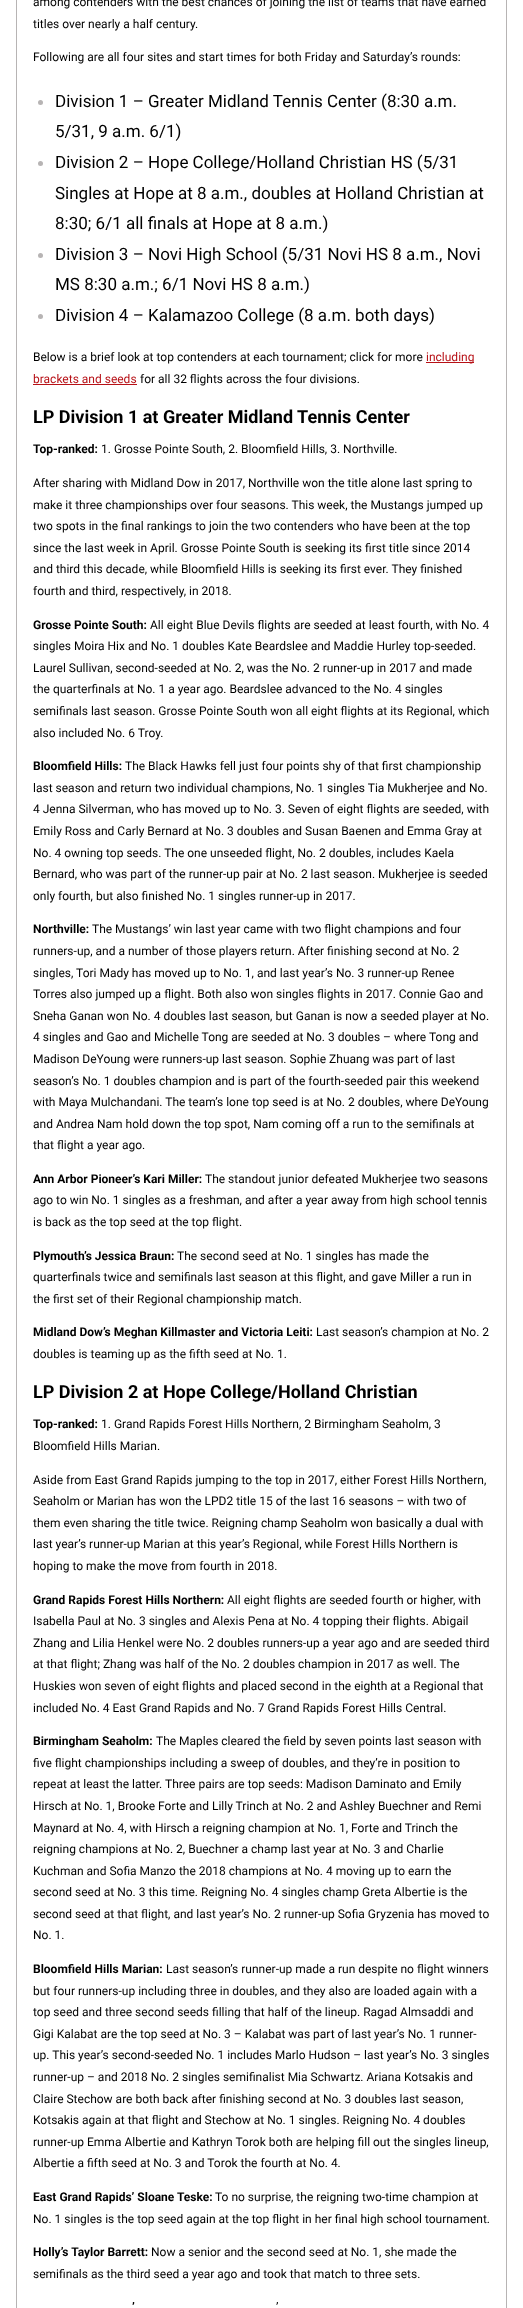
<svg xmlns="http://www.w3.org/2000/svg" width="523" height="2308">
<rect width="100%" height="100%" fill="#fff"/>
<rect x="16.5" y="-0.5" width="490" height="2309" fill="none" stroke="#b7b4b4"/>
<text x="33" y="6" style="font-family:Roboto;font-size:12px;fill:#000">among contenders with the best chances of joining the list of teams that have earned</text>
<text x="33" y="28" style="font-family:Roboto;font-size:12px;fill:#000">titles over nearly a half century.</text>
<text x="33" y="61" style="font-family:Roboto;font-size:12px;fill:#000">Following are all four sites and start times for both Friday and Saturday’s rounds:</text>
<circle cx="40.5" cy="102.5" r="2.5" fill="#b7b4b4"/>
<text x="55" y="107" style="font-family:Roboto;font-size:17px;fill:#000">Division 1 – Greater Midland Tennis Center (8:30 a.m.</text>
<text x="55" y="137" style="font-family:Roboto;font-size:17px;fill:#000">5/31, 9 a.m. 6/1)</text>
<circle cx="40.5" cy="163.5" r="2.5" fill="#b7b4b4"/>
<text x="55" y="168" style="font-family:Roboto;font-size:17px;fill:#000">Division 2 – Hope College/Holland Christian HS (5/31</text>
<text x="55" y="199" style="font-family:Roboto;font-size:17px;fill:#000">Singles at Hope at 8 a.m., doubles at Holland Christian at</text>
<text x="55" y="229" style="font-family:Roboto;font-size:17px;fill:#000">8:30; 6/1 all finals at Hope at 8 a.m.)</text>
<circle cx="40.5" cy="255.5" r="2.5" fill="#b7b4b4"/>
<text x="55" y="260" style="font-family:Roboto;font-size:17px;fill:#000">Division 3 – Novi High School (5/31 Novi HS 8 a.m., Novi</text>
<text x="55" y="290" style="font-family:Roboto;font-size:17px;fill:#000">MS 8:30 a.m.; 6/1 Novi HS 8 a.m.)</text>
<circle cx="40.5" cy="316.5" r="2.5" fill="#b7b4b4"/>
<text x="55" y="321" style="font-family:Roboto;font-size:17px;fill:#000">Division 4 – Kalamazoo College (8 a.m. both days)</text>
<text x="33" y="361" style="font-family:Roboto;font-size:12px;fill:#000">Below is a brief look at top contenders at each tournament; click for more</text>
<rect x="426" y="362" width="48" height="1" fill="#b71117"/>
<text x="426" y="361" style="font-family:Roboto;font-size:12px;fill:#b71117">including</text>
<text x="33" y="383" style="font-family:Roboto;font-size:12px;fill:#b71117">brackets and seeds</text>
<rect x="33" y="384" width="104" height="1" fill="#b71117"/>
<text x="140" y="383" style="font-family:Roboto;font-size:12px;fill:#000">for all 32 flights across the four divisions.</text>
<text x="33" y="423" style="font-family:Roboto;font-size:18px;font-weight:bold;fill:#000">LP Division 1 at Greater Midland Tennis Center</text>
<text x="33" y="453" style="font-family:Roboto;font-size:12px;font-weight:bold;fill:#000">Top-ranked:</text>
<text x="101" y="453" style="font-family:Roboto;font-size:12px;fill:#000">1. Grosse Pointe South, 2. Bloomfield Hills, 3. Northville.</text>
<text x="33" y="487" style="font-family:Roboto;font-size:12px;fill:#000">After sharing with Midland Dow in 2017, Northville won the title alone last spring to</text>
<text x="33" y="509" style="font-family:Roboto;font-size:12px;fill:#000">make it three championships over four seasons. This week, the Mustangs jumped up</text>
<text x="33" y="530" style="font-family:Roboto;font-size:12px;fill:#000">two spots in the final rankings to join the two contenders who have been at the top</text>
<text x="33" y="552" style="font-family:Roboto;font-size:12px;fill:#000">since the last week in April. Grosse Pointe South is seeking its first title since 2014</text>
<text x="33" y="573" style="font-family:Roboto;font-size:12px;fill:#000">and third this decade, while Bloomfield Hills is seeking its first ever. They finished</text>
<text x="33" y="595" style="font-family:Roboto;font-size:12px;fill:#000">fourth and third, respectively, in 2018.</text>
<text x="33" y="629" style="font-family:Roboto;font-size:12px;font-weight:bold;fill:#000">Grosse Pointe South:</text>
<text x="150" y="629" style="font-family:Roboto;font-size:12px;fill:#000">All eight Blue Devils flights are seeded at least fourth, with No. 4</text>
<text x="33" y="650" style="font-family:Roboto;font-size:12px;fill:#000">singles Moira Hix and No. 1 doubles Kate Beardslee and Maddie Hurley top-seeded.</text>
<text x="33" y="672" style="font-family:Roboto;font-size:12px;fill:#000">Laurel Sullivan, second-seeded at No. 2, was the No. 2 runner-up in 2017 and made</text>
<text x="33" y="693" style="font-family:Roboto;font-size:12px;fill:#000">the quarterfinals at No. 1 a year ago. Beardslee advanced to the No. 4 singles</text>
<text x="33" y="715" style="font-family:Roboto;font-size:12px;fill:#000">semifinals last season. Grosse Pointe South won all eight flights at its Regional, which</text>
<text x="33" y="737" style="font-family:Roboto;font-size:12px;fill:#000">also included No. 6 Troy.</text>
<text x="33" y="770" style="font-family:Roboto;font-size:12px;font-weight:bold;fill:#000">Bloomfield Hills:</text>
<text x="125" y="770" style="font-family:Roboto;font-size:12px;fill:#000">The Black Hawks fell just four points shy of that first championship</text>
<text x="33" y="792" style="font-family:Roboto;font-size:12px;fill:#000">last season and return two individual champions, No. 1 singles Tia Mukherjee and No.</text>
<text x="33" y="813" style="font-family:Roboto;font-size:12px;fill:#000">4 Jenna Silverman, who has moved up to No. 3. Seven of eight flights are seeded, with</text>
<text x="33" y="835" style="font-family:Roboto;font-size:12px;fill:#000">Emily Ross and Carly Bernard at No. 3 doubles and Susan Baenen and Emma Gray at</text>
<text x="33" y="857" style="font-family:Roboto;font-size:12px;fill:#000">No. 4 owning top seeds. The one unseeded flight, No. 2 doubles, includes Kaela</text>
<text x="33" y="878" style="font-family:Roboto;font-size:12px;fill:#000">Bernard, who was part of the runner-up pair at No. 2 last season. Mukherjee is seeded</text>
<text x="33" y="900" style="font-family:Roboto;font-size:12px;fill:#000">only fourth, but also finished No. 1 singles runner-up in 2017.</text>
<text x="33" y="933" style="font-family:Roboto;font-size:12px;font-weight:bold;fill:#000">Northville:</text>
<text x="92" y="933" style="font-family:Roboto;font-size:12px;fill:#000">The Mustangs’ win last year came with two flight champions and four</text>
<text x="33" y="955" style="font-family:Roboto;font-size:12px;fill:#000">runners-up, and a number of those players return. After finishing second at No. 2</text>
<text x="33" y="977" style="font-family:Roboto;font-size:12px;fill:#000">singles, Tori Mady has moved up to No. 1, and last year’s No. 3 runner-up Renee</text>
<text x="33" y="998" style="font-family:Roboto;font-size:12px;fill:#000">Torres also jumped up a flight. Both also won singles flights in 2017. Connie Gao and</text>
<text x="33" y="1020" style="font-family:Roboto;font-size:12px;fill:#000">Sneha Ganan won No. 4 doubles last season, but Ganan is now a seeded player at No.</text>
<text x="33" y="1041" style="font-family:Roboto;font-size:12px;fill:#000">4 singles and Gao and Michelle Tong are seeded at No. 3 doubles – where Tong and</text>
<text x="33" y="1063" style="font-family:Roboto;font-size:12px;fill:#000">Madison DeYoung were runners-up last season. Sophie Zhuang was part of last</text>
<text x="33" y="1085" style="font-family:Roboto;font-size:12px;fill:#000">season’s No. 1 doubles champion and is part of the fourth-seeded pair this weekend</text>
<text x="33" y="1106" style="font-family:Roboto;font-size:12px;fill:#000">with Maya Mulchandani. The team’s lone top seed is at No. 2 doubles, where DeYoung</text>
<text x="33" y="1128" style="font-family:Roboto;font-size:12px;fill:#000">and Andrea Nam hold down the top spot, Nam coming off a run to the semifinals at</text>
<text x="33" y="1149" style="font-family:Roboto;font-size:12px;fill:#000">that flight a year ago.</text>
<text x="33" y="1183" style="font-family:Roboto;font-size:12px;font-weight:bold;fill:#000">Ann Arbor Pioneer’s Kari Miller:</text>
<text x="205" y="1183" style="font-family:Roboto;font-size:12px;fill:#000">The standout junior defeated Mukherjee two seasons</text>
<text x="33" y="1204" style="font-family:Roboto;font-size:12px;fill:#000">ago to win No. 1 singles as a freshman, and after a year away from high school tennis</text>
<text x="33" y="1226" style="font-family:Roboto;font-size:12px;fill:#000">is back as the top seed at the top flight.</text>
<text x="33" y="1260" style="font-family:Roboto;font-size:12px;font-weight:bold;fill:#000">Plymouth’s Jessica Braun:</text>
<text x="177" y="1260" style="font-family:Roboto;font-size:12px;fill:#000">The second seed at No. 1 singles has made the</text>
<text x="33" y="1281" style="font-family:Roboto;font-size:12px;fill:#000">quarterfinals twice and semifinals last season at this flight, and gave Miller a run in</text>
<text x="33" y="1303" style="font-family:Roboto;font-size:12px;fill:#000">the first set of their Regional championship match.</text>
<text x="33" y="1336" style="font-family:Roboto;font-size:12px;font-weight:bold;fill:#000">Midland Dow’s Meghan Killmaster and Victoria Leiti:</text>
<text x="316" y="1336" style="font-family:Roboto;font-size:12px;fill:#000">Last season’s champion at No. 2</text>
<text x="33" y="1358" style="font-family:Roboto;font-size:12px;fill:#000">doubles is teaming up as the fifth seed at No. 1.</text>
<text x="33" y="1398" style="font-family:Roboto;font-size:18px;font-weight:bold;fill:#000">LP Division 2 at Hope College/Holland Christian</text>
<text x="33" y="1428" style="font-family:Roboto;font-size:12px;font-weight:bold;fill:#000">Top-ranked:</text>
<text x="101" y="1428" style="font-family:Roboto;font-size:12px;fill:#000">1. Grand Rapids Forest Hills Northern, 2 Birmingham Seaholm, 3</text>
<text x="33" y="1450" style="font-family:Roboto;font-size:12px;fill:#000">Bloomfield Hills Marian.</text>
<text x="33" y="1484" style="font-family:Roboto;font-size:12px;fill:#000">Aside from East Grand Rapids jumping to the top in 2017, either Forest Hills Northern,</text>
<text x="33" y="1505" style="font-family:Roboto;font-size:12px;fill:#000">Seaholm or Marian has won the LPD2 title 15 of the last 16 seasons – with two of</text>
<text x="33" y="1527" style="font-family:Roboto;font-size:12px;fill:#000">them even sharing the title twice. Reigning champ Seaholm won basically a dual with</text>
<text x="33" y="1548" style="font-family:Roboto;font-size:12px;fill:#000">last year’s runner-up Marian at this year’s Regional, while Forest Hills Northern is</text>
<text x="33" y="1570" style="font-family:Roboto;font-size:12px;fill:#000">hoping to make the move from fourth in 2018.</text>
<text x="33" y="1604" style="font-family:Roboto;font-size:12px;font-weight:bold;fill:#000">Grand Rapids Forest Hills Northern:</text>
<text x="227" y="1604" style="font-family:Roboto;font-size:12px;fill:#000">All eight flights are seeded fourth or higher, with</text>
<text x="33" y="1625" style="font-family:Roboto;font-size:12px;fill:#000">Isabella Paul at No. 3 singles and Alexis Pena at No. 4 topping their flights. Abigail</text>
<text x="33" y="1647" style="font-family:Roboto;font-size:12px;fill:#000">Zhang and Lilia Henkel were No. 2 doubles runners-up a year ago and are seeded third</text>
<text x="33" y="1668" style="font-family:Roboto;font-size:12px;fill:#000">at that flight; Zhang was half of the No. 2 doubles champion in 2017 as well. The</text>
<text x="33" y="1690" style="font-family:Roboto;font-size:12px;fill:#000">Huskies won seven of eight flights and placed second in the eighth at a Regional that</text>
<text x="33" y="1712" style="font-family:Roboto;font-size:12px;fill:#000">included No. 4 East Grand Rapids and No. 7 Grand Rapids Forest Hills Central.</text>
<text x="33" y="1745" style="font-family:Roboto;font-size:12px;font-weight:bold;fill:#000">Birmingham Seaholm:</text>
<text x="156" y="1745" style="font-family:Roboto;font-size:12px;fill:#000">The Maples cleared the field by seven points last season with</text>
<text x="33" y="1767" style="font-family:Roboto;font-size:12px;fill:#000">five flight championships including a sweep of doubles, and they’re in position to</text>
<text x="33" y="1788" style="font-family:Roboto;font-size:12px;fill:#000">repeat at least the latter. Three pairs are top seeds: Madison Daminato and Emily</text>
<text x="33" y="1810" style="font-family:Roboto;font-size:12px;fill:#000">Hirsch at No. 1, Brooke Forte and Lilly Trinch at No. 2 and Ashley Buechner and Remi</text>
<text x="33" y="1832" style="font-family:Roboto;font-size:12px;fill:#000">Maynard at No. 4, with Hirsch a reigning champion at No. 1, Forte and Trinch the</text>
<text x="33" y="1853" style="font-family:Roboto;font-size:12px;fill:#000">reigning champions at No. 2, Buechner a champ last year at No. 3 and Charlie</text>
<text x="33" y="1875" style="font-family:Roboto;font-size:12px;fill:#000">Kuchman and Sofia Manzo the 2018 champions at No. 4 moving up to earn the</text>
<text x="33" y="1896" style="font-family:Roboto;font-size:12px;fill:#000">second seed at No. 3 this time. Reigning No. 4 singles champ Greta Albertie is the</text>
<text x="33" y="1918" style="font-family:Roboto;font-size:12px;fill:#000">second seed at that flight, and last year’s No. 2 runner-up Sofia Gryzenia has moved to</text>
<text x="33" y="1939" style="font-family:Roboto;font-size:12px;fill:#000">No. 1.</text>
<text x="33" y="1973" style="font-family:Roboto;font-size:12px;font-weight:bold;fill:#000">Bloomfield Hills Marian:</text>
<text x="166" y="1973" style="font-family:Roboto;font-size:12px;fill:#000">Last season’s runner-up made a run despite no flight winners</text>
<text x="33" y="1995" style="font-family:Roboto;font-size:12px;fill:#000">but four runners-up including three in doubles, and they also are loaded again with a</text>
<text x="33" y="2016" style="font-family:Roboto;font-size:12px;fill:#000">top seed and three second seeds filling that half of the lineup. Ragad Almsaddi and</text>
<text x="33" y="2038" style="font-family:Roboto;font-size:12px;fill:#000">Gigi Kalabat are the top seed at No. 3 – Kalabat was part of last year’s No. 1 runner-</text>
<text x="33" y="2059" style="font-family:Roboto;font-size:12px;fill:#000">up. This year’s second-seeded No. 1 includes Marlo Hudson – last year’s No. 3 singles</text>
<text x="33" y="2081" style="font-family:Roboto;font-size:12px;fill:#000">runner-up – and 2018 No. 2 singles semifinalist Mia Schwartz. Ariana Kotsakis and</text>
<text x="33" y="2103" style="font-family:Roboto;font-size:12px;fill:#000">Claire Stechow are both back after finishing second at No. 3 doubles last season,</text>
<text x="33" y="2124" style="font-family:Roboto;font-size:12px;fill:#000">Kotsakis again at that flight and Stechow at No. 1 singles. Reigning No. 4 doubles</text>
<text x="33" y="2146" style="font-family:Roboto;font-size:12px;fill:#000">runner-up Emma Albertie and Kathryn Torok both are helping fill out the singles lineup,</text>
<text x="33" y="2167" style="font-family:Roboto;font-size:12px;fill:#000">Albertie a fifth seed at No. 3 and Torok the fourth at No. 4.</text>
<text x="33" y="2201" style="font-family:Roboto;font-size:12px;font-weight:bold;fill:#000">East Grand Rapids’ Sloane Teske:</text>
<text x="215" y="2201" style="font-family:Roboto;font-size:12px;fill:#000">To no surprise, the reigning two-time champion at</text>
<text x="33" y="2223" style="font-family:Roboto;font-size:12px;fill:#000">No. 1 singles is the top seed again at the top flight in her final high school tournament.</text>
<text x="33" y="2256" style="font-family:Roboto;font-size:12px;font-weight:bold;fill:#000">Holly’s Taylor Barrett:</text>
<text x="151" y="2256" style="font-family:Roboto;font-size:12px;fill:#000">Now a senior and the second seed at No. 1, she made the</text>
<text x="33" y="2278" style="font-family:Roboto;font-size:12px;fill:#000">semifinals as the third seed a year ago and took that match to three sets.</text>
<text x="132" y="2311" style="font-family:Roboto;font-size:12px;font-weight:bold;fill:#000">’</text>
<text x="276" y="2311" style="font-family:Roboto;font-size:12px;fill:#000">’</text>
</svg>
